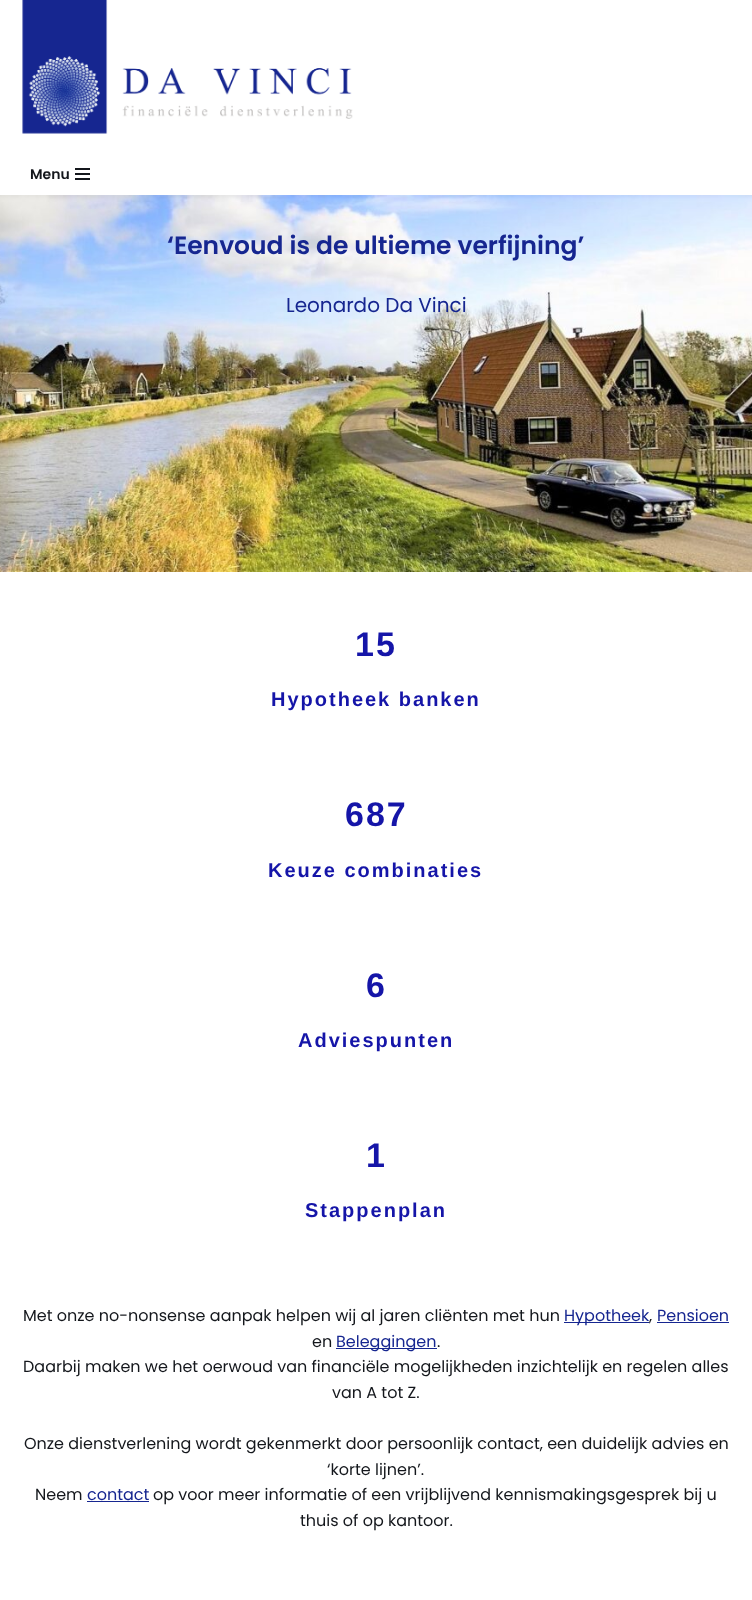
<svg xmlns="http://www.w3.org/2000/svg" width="752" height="1600">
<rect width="100%" height="100%" fill="#fff"/>
<image x="22" y="0" width="331" height="134" href="media/1.png"/>
<text x="30" y="179" style="font-family:Poppins;font-size:14px;font-weight:600;fill:#14171c">Menu</text>
<rect x="75" y="168" width="15" height="2" fill="#14171c"/>
<rect x="75" y="173" width="15" height="2" fill="#14171c"/>
<rect x="75" y="178" width="15" height="2" fill="#14171c"/>
<image x="0" y="195" width="752" height="377" href="media/2.png"/>
<text x="167" y="254" style="font-family:Poppins;font-size:25px;font-weight:600;fill:#162690">‘Eenvoud is de ultieme verfijning’</text>
<text x="286" y="312" style="font-family:Poppins;font-size:20px;fill:#162690">Leonardo Da Vinci</text>
<text x="355" y="656" style="font-family:Liberation Sans;font-size:34px;font-weight:bold;letter-spacing:2px;fill:#1515a8">15</text>
<text x="271" y="706" style="font-family:Liberation Sans;font-size:20px;font-weight:bold;letter-spacing:2px;fill:#1515a8">Hypotheek banken</text>
<text x="345" y="826" style="font-family:Liberation Sans;font-size:34px;font-weight:bold;letter-spacing:2px;fill:#1515a8">687</text>
<text x="268" y="877" style="font-family:Liberation Sans;font-size:20px;font-weight:bold;letter-spacing:2px;fill:#1515a8">Keuze combinaties</text>
<text x="366" y="997" style="font-family:Liberation Sans;font-size:34px;font-weight:bold;letter-spacing:2px;fill:#1515a8">6</text>
<text x="298" y="1047" style="font-family:Liberation Sans;font-size:20px;font-weight:bold;letter-spacing:2px;fill:#1515a8">Adviespunten</text>
<text x="366" y="1167" style="font-family:Liberation Sans;font-size:34px;font-weight:bold;letter-spacing:2px;fill:#1515a8">1</text>
<text x="305" y="1217" style="font-family:Liberation Sans;font-size:20px;font-weight:bold;letter-spacing:2px;fill:#1515a8">Stappenplan</text>
<text x="23" y="1321" style="font-family:Poppins;font-size:16px;fill:#14171c">Met onze no-nonsense aanpak helpen wij al jaren cliënten met hun</text>
<rect x="564" y="1322" width="85" height="1" fill="#162690"/>
<text x="564" y="1321" style="font-family:Poppins;font-size:16px;fill:#162690">Hypotheek</text>
<text x="649" y="1321" style="font-family:Poppins;font-size:16px;fill:#14171c">,</text>
<text x="657" y="1321" style="font-family:Poppins;font-size:16px;fill:#162690">Pensioen</text>
<rect x="657" y="1322" width="72" height="1" fill="#162690"/>
<text x="312" y="1347" style="font-family:Poppins;font-size:16px;fill:#14171c">en</text>
<rect x="336" y="1348" width="101" height="1" fill="#162690"/>
<text x="336" y="1347" style="font-family:Poppins;font-size:16px;fill:#162690">Beleggingen</text>
<text x="437" y="1347" style="font-family:Poppins;font-size:16px;fill:#14171c">.</text>
<text x="23" y="1372" style="font-family:Poppins;font-size:16px;fill:#14171c">Daarbij maken we het oerwoud van financiële mogelijkheden inzichtelijk en regelen alles</text>
<text x="332" y="1398" style="font-family:Poppins;font-size:16px;fill:#14171c">van A tot Z.</text>
<text x="24" y="1449" style="font-family:Poppins;font-size:16px;fill:#14171c">Onze dienstverlening wordt gekenmerkt door persoonlijk contact, een duidelijk advies en</text>
<text x="327" y="1475" style="font-family:Poppins;font-size:16px;fill:#14171c">‘korte lijnen’.</text>
<text x="35" y="1500" style="font-family:Poppins;font-size:16px;fill:#14171c">Neem</text>
<text x="87" y="1500" style="font-family:Poppins;font-size:16px;fill:#162690">contact</text>
<rect x="87" y="1501" width="62" height="1" fill="#162690"/>
<text x="153" y="1500" style="font-family:Poppins;font-size:16px;fill:#14171c">op voor meer informatie of een vrijblijvend kennismakingsgesprek bij u</text>
<text x="300" y="1526" style="font-family:Poppins;font-size:16px;fill:#14171c">thuis of op kantoor.</text>
</svg>
